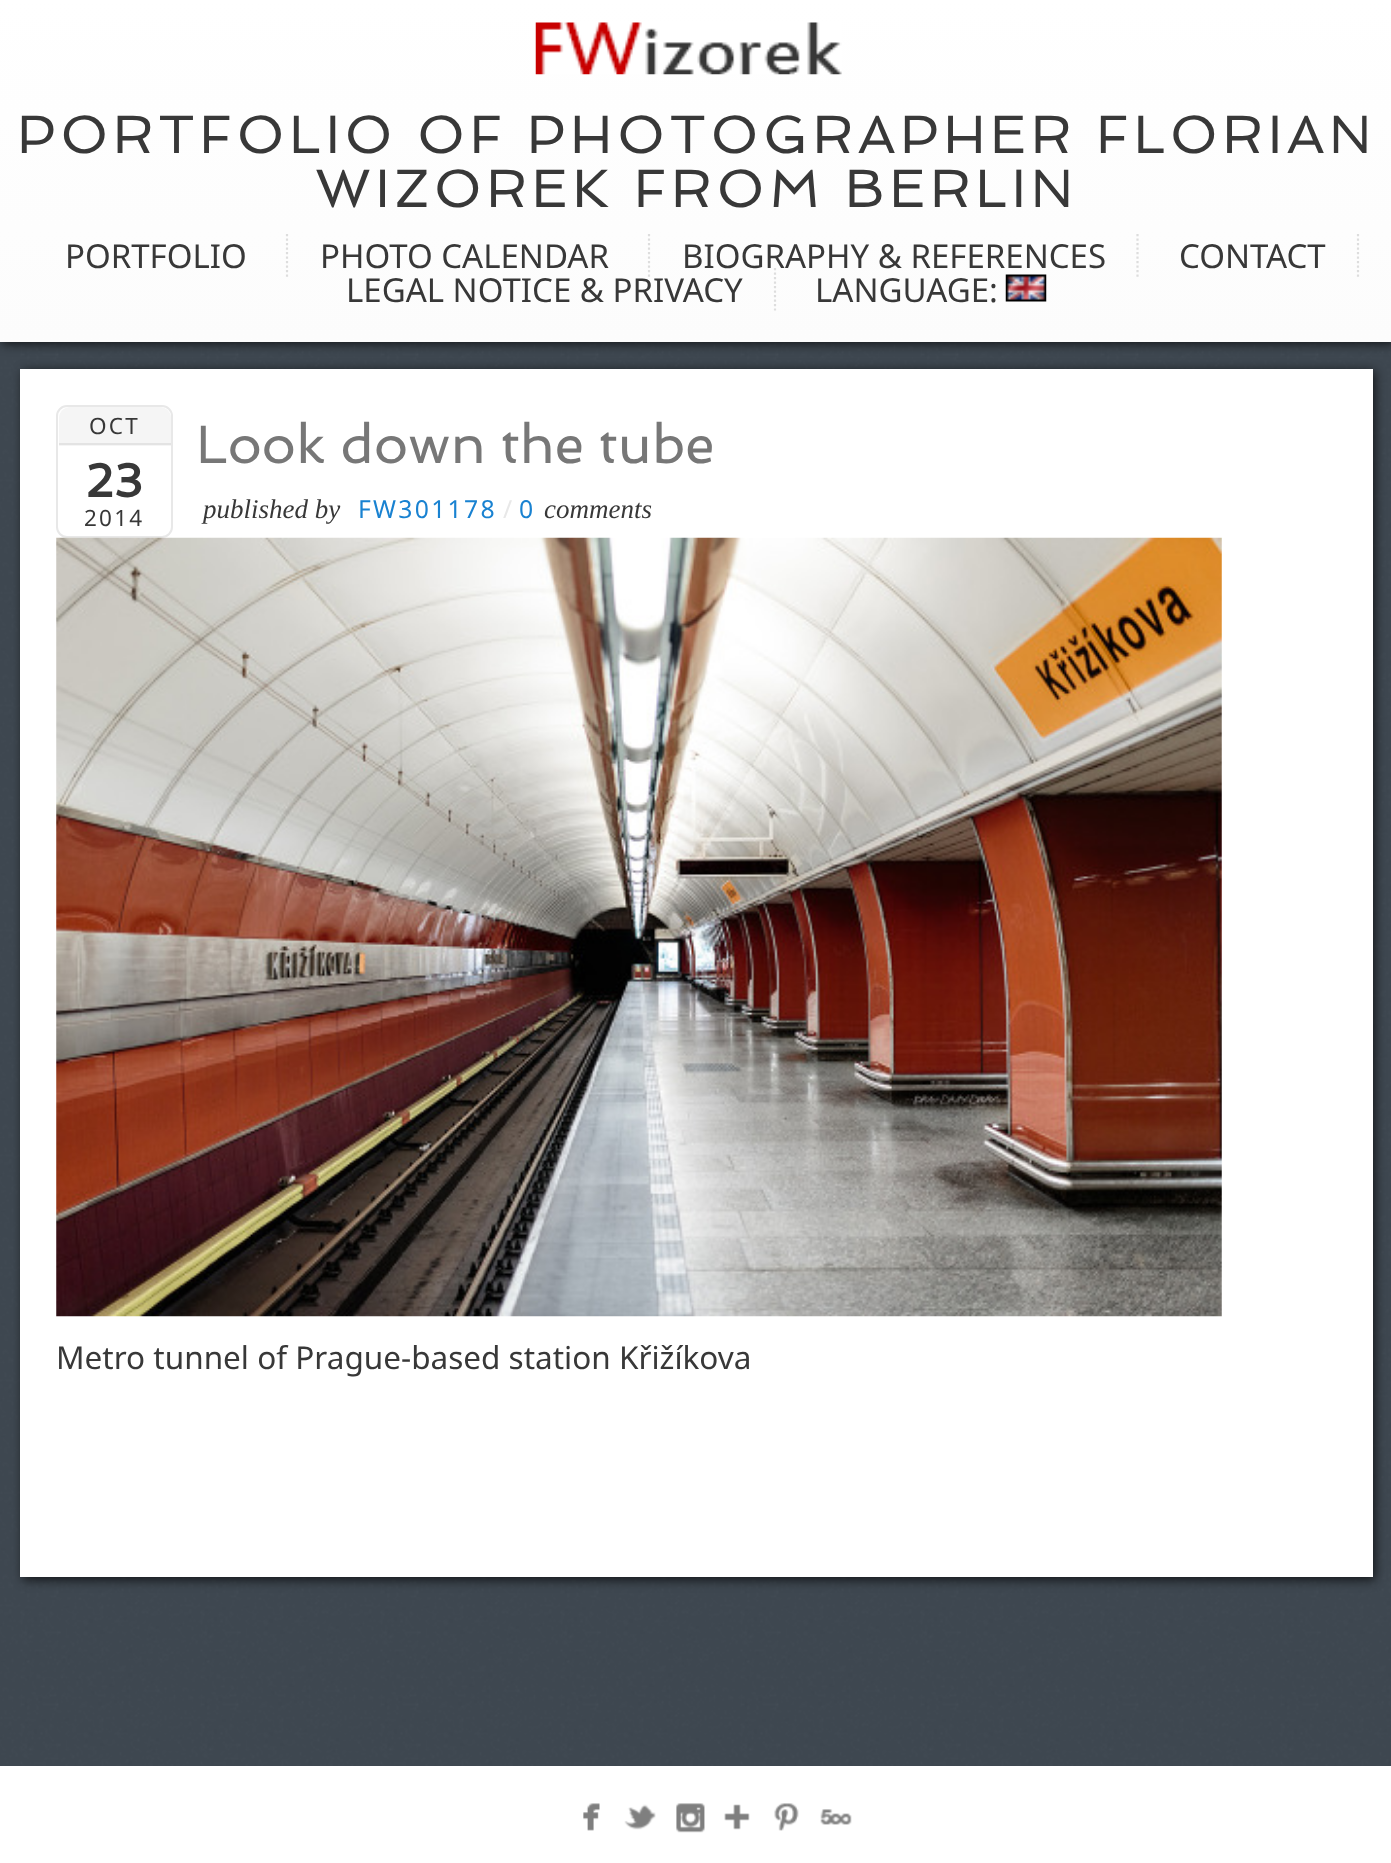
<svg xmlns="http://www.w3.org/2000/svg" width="1391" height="1863">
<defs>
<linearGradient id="g1" gradientUnits="userSpaceOnUse" x1="696" y1="0" x2="696" y2="342"><stop offset="0" stop-color="#fff"/><stop offset="1" stop-color="#fcfcfc"/></linearGradient>
</defs>
<rect width="100%" height="100%" fill="#556270"/>
<image x="0" y="342" width="1391" height="1424" href="media/1.png"/>
<rect x="2" y="2" width="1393" height="342" fill="#000000b3" filter="blur(5.5px)"/>
<rect width="1391" height="342" fill="url(#g1)"/>
<image x="535" y="22" width="307" height="53" href="media/2.png"/>
<text x="17" y="153" style="font-family:Spinnaker;font-size:54px;letter-spacing:4.5px;fill:#383838">PORTFOLIO OF PHOTOGRAPHER FLORIAN</text>
<text x="315" y="207" style="font-family:Spinnaker;font-size:54px;letter-spacing:4.5px;fill:#383838">WIZOREK FROM BERLIN</text>
<text x="65" y="268" style="font-family:Noto Sans;font-size:33px;fill:#383838">PORTFOLIO</text>
<path d="M287 234v43" fill="none" stroke="#ddd" stroke-width="2.2" stroke-dasharray="2.25 2.25"/>
<text x="320" y="268" style="font-family:Noto Sans;font-size:33px;fill:#383838">PHOTO CALENDAR</text>
<path d="M649 234v43" fill="none" stroke="#ddd" stroke-width="2.2" stroke-dasharray="2.25 2.25"/>
<text x="682" y="268" style="font-family:Noto Sans;font-size:33px;fill:#383838">BIOGRAPHY &amp; REFERENCES</text>
<path d="M1137.5 234v43" fill="none" stroke="#ddd" stroke-width="2.2" stroke-dasharray="2.25 2.25"/>
<text x="1179" y="268" style="font-family:Noto Sans;font-size:33px;fill:#383838">CONTACT</text>
<path d="M1358 234v43" fill="none" stroke="#ddd" stroke-width="2.2" stroke-dasharray="2.25 2.25"/>
<text x="346" y="302" style="font-family:Noto Sans;font-size:33px;fill:#383838">LEGAL NOTICE &amp; PRIVACY</text>
<path d="M775 268v42.5" fill="none" stroke="#ddd" stroke-width="2.2" stroke-dasharray="2.25 2.25"/>
<text x="815" y="302" style="font-family:Noto Sans;font-size:33px;fill:#383838">LANGUAGE:</text>
<image x="1005" y="274" width="42" height="28" href="media/3.png"/>
<rect x="23" y="371" width="1352" height="1209" fill="#000000b3" filter="blur(5.5px)"/>
<rect x="20" y="369" width="1353" height="1208" fill="#fff"/>
<rect x="57" y="406" width="115" height="131" rx="10" fill="none" stroke="#e8e8e8" stroke-width="2"/>
<path d="M70 407h90c6 0 11 5 11 11v28h-112v-28c0-6 5-11 11-11z" fill="#f5f5f5"/>
<rect x="59" y="443" width="112" height="2" fill="#e3e3e3"/>
<text x="89" y="434" style="font-family:Noto Sans;font-size:22.5px;letter-spacing:2.25px;fill:#383838">OCT</text>
<text x="85" y="497" style="font-family:Spinnaker;font-size:47px;font-weight:bold;fill:#383838">23</text>
<text x="84" y="526" style="font-family:Noto Sans;font-size:22.5px;letter-spacing:2.25px;fill:#383838">2014</text>
<text x="196" y="463" style="font-family:Spinnaker;font-size:54px;fill:#777">Look down the tube</text>
<text x="203" y="518" style="font-family:Liberation Serif;font-size:27px;font-style:italic;fill:#383838">published by</text>
<text x="358" y="518" style="font-family:Noto Sans;font-size:24.75px;letter-spacing:2.25px;fill:#1982d1">FW301178</text>
<text x="503" y="518" style="font-family:Noto Sans;font-size:24.75px;fill:#e8e8e8">/</text>
<text x="519" y="518" style="font-family:Noto Sans;font-size:24.75px;letter-spacing:2.25px;fill:#1982d1">0</text>
<text x="544" y="518" style="font-family:Liberation Serif;font-size:27px;font-style:italic;fill:#383838">comments</text>
<image x="56" y="537" width="1166" height="780" href="media/4.png"/>
<text x="56" y="1369" style="font-family:Noto Sans;font-size:31.5px;fill:#383838">Metro tunnel of Prague-based station Křižíkova</text>
<rect y="1766" width="1391" height="97" fill="#fff"/>
<image x="583" y="1803" width="17" height="28" href="media/5.png"/>
<image x="624" y="1804" width="32" height="26" href="media/6.png"/>
<image x="676" y="1803" width="29" height="30" href="media/7.png"/>
<image x="724" y="1804" width="26" height="26" href="media/8.png"/>
<image x="774" y="1803" width="25" height="28" href="media/9.png"/>
<image x="820" y="1809" width="32" height="16" href="media/10.png"/>
</svg>
